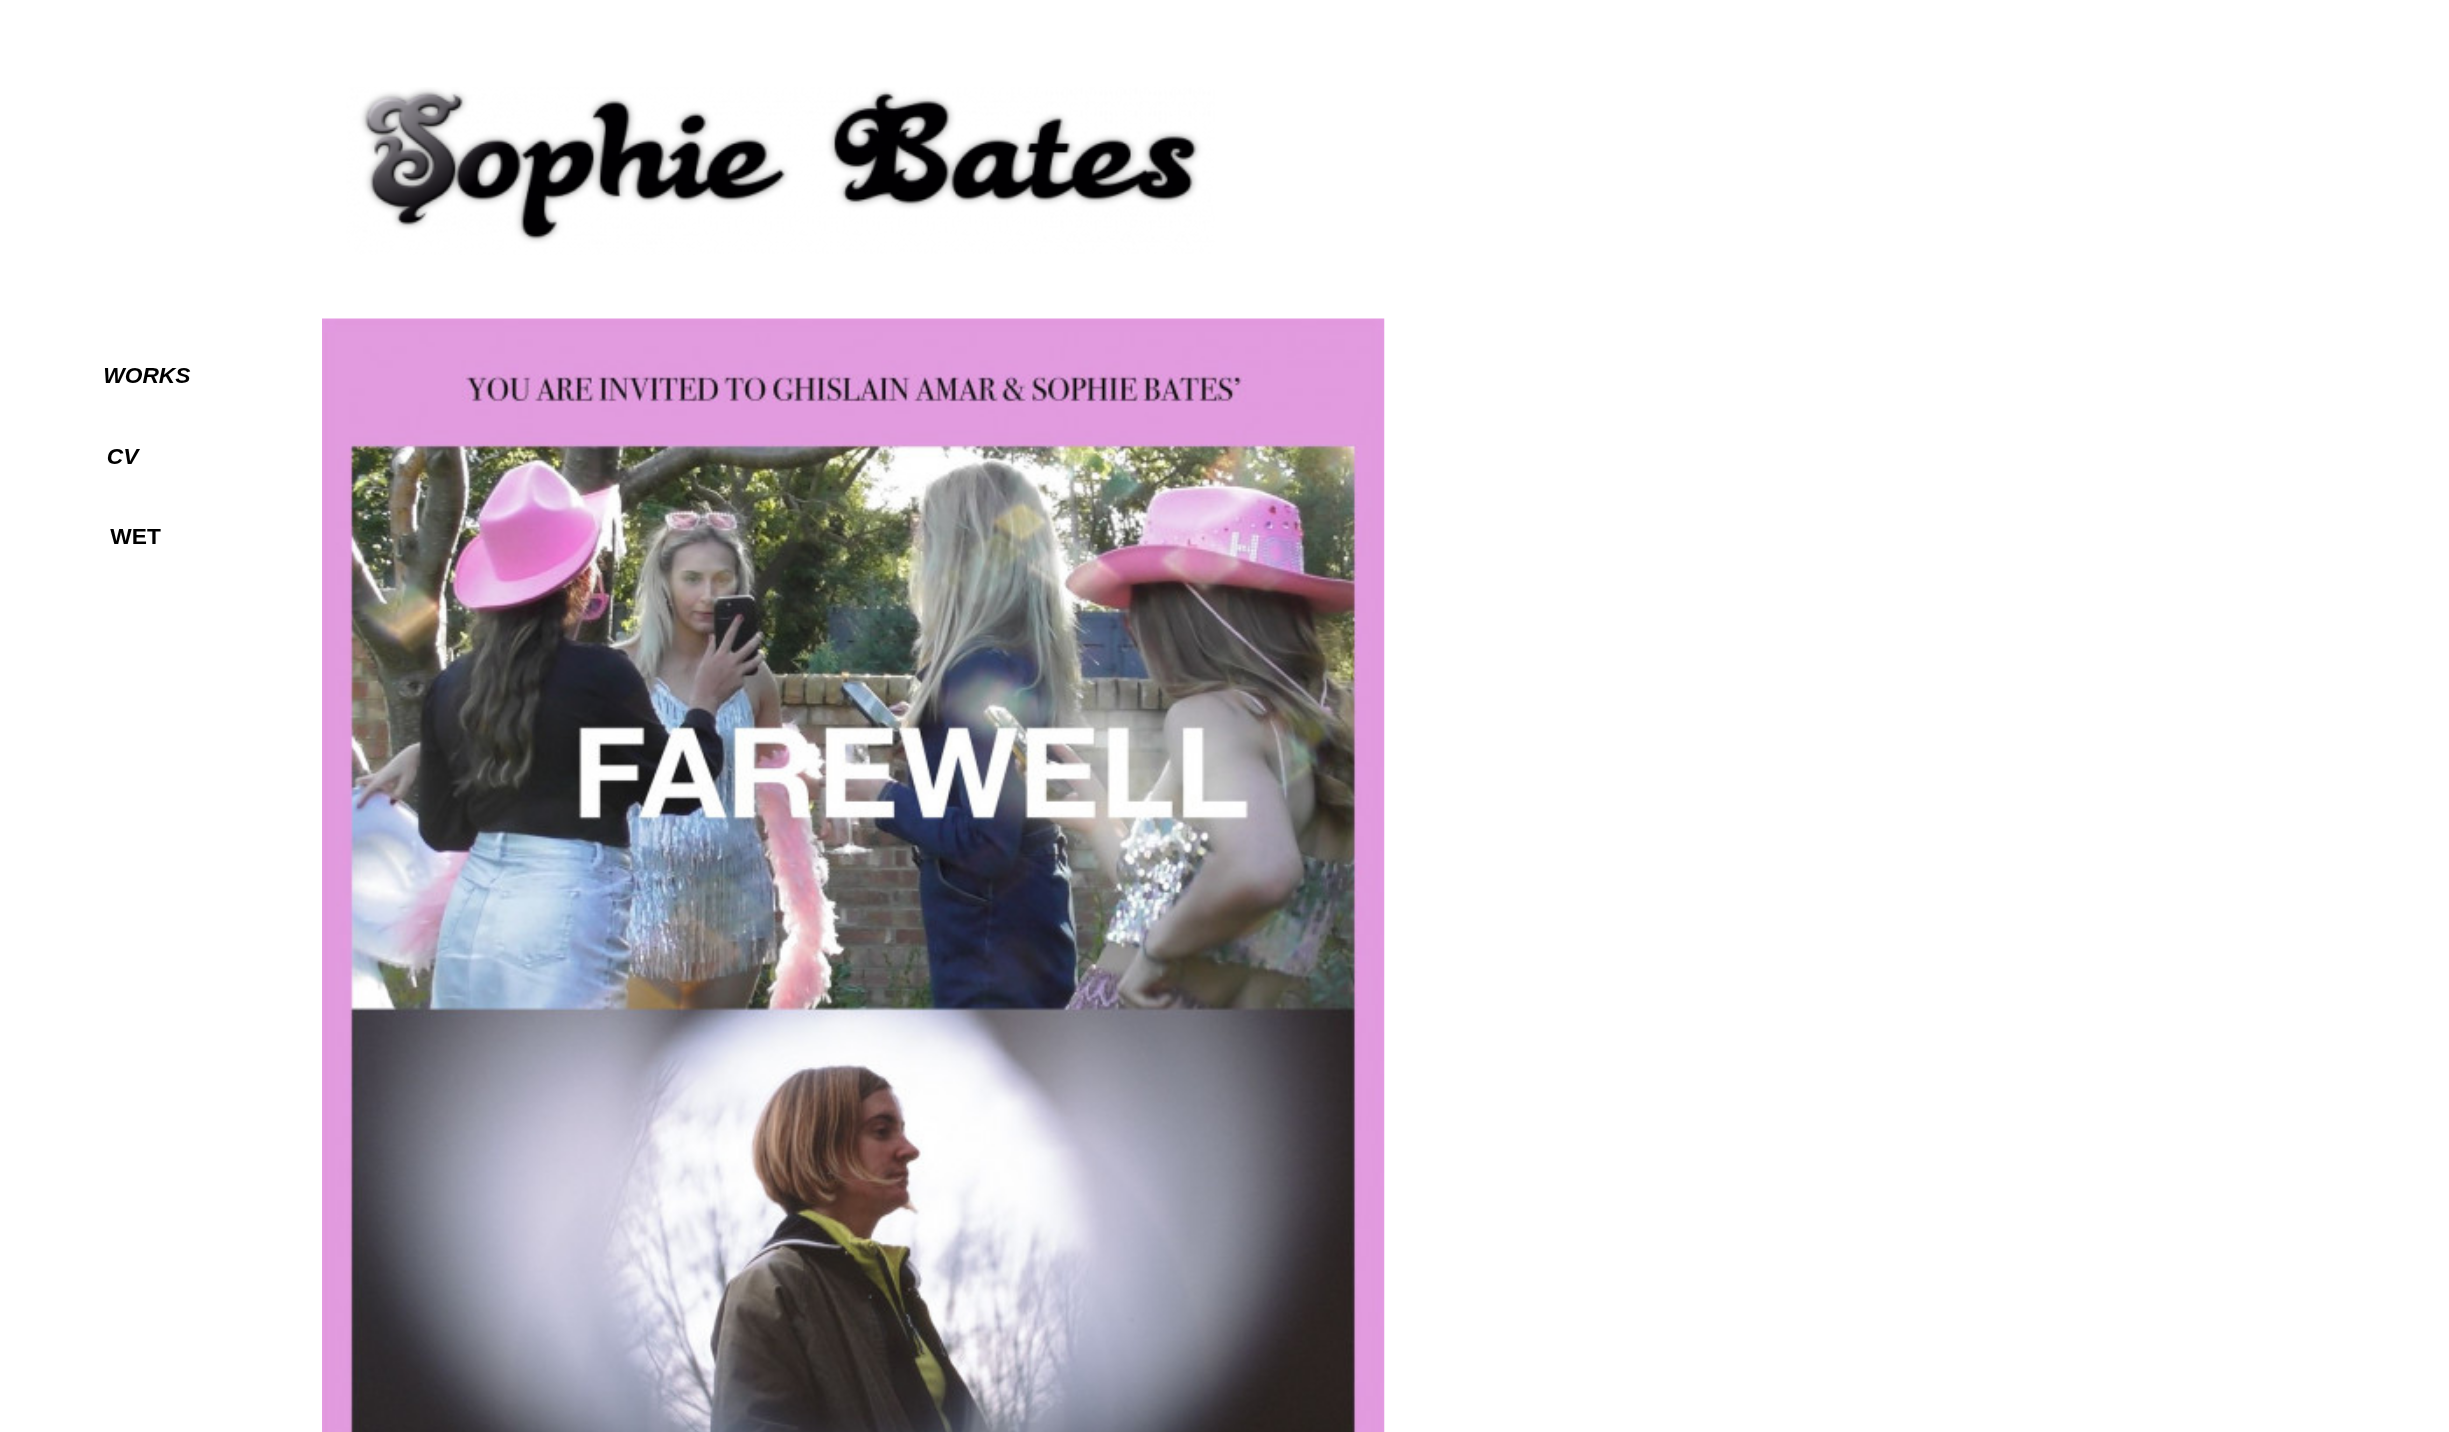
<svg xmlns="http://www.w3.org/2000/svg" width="2449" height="1432">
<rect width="100%" height="100%" fill="#fff"/>
<image x="104" y="87" width="1281" height="1345" href="media/1.png"/>
</svg>
